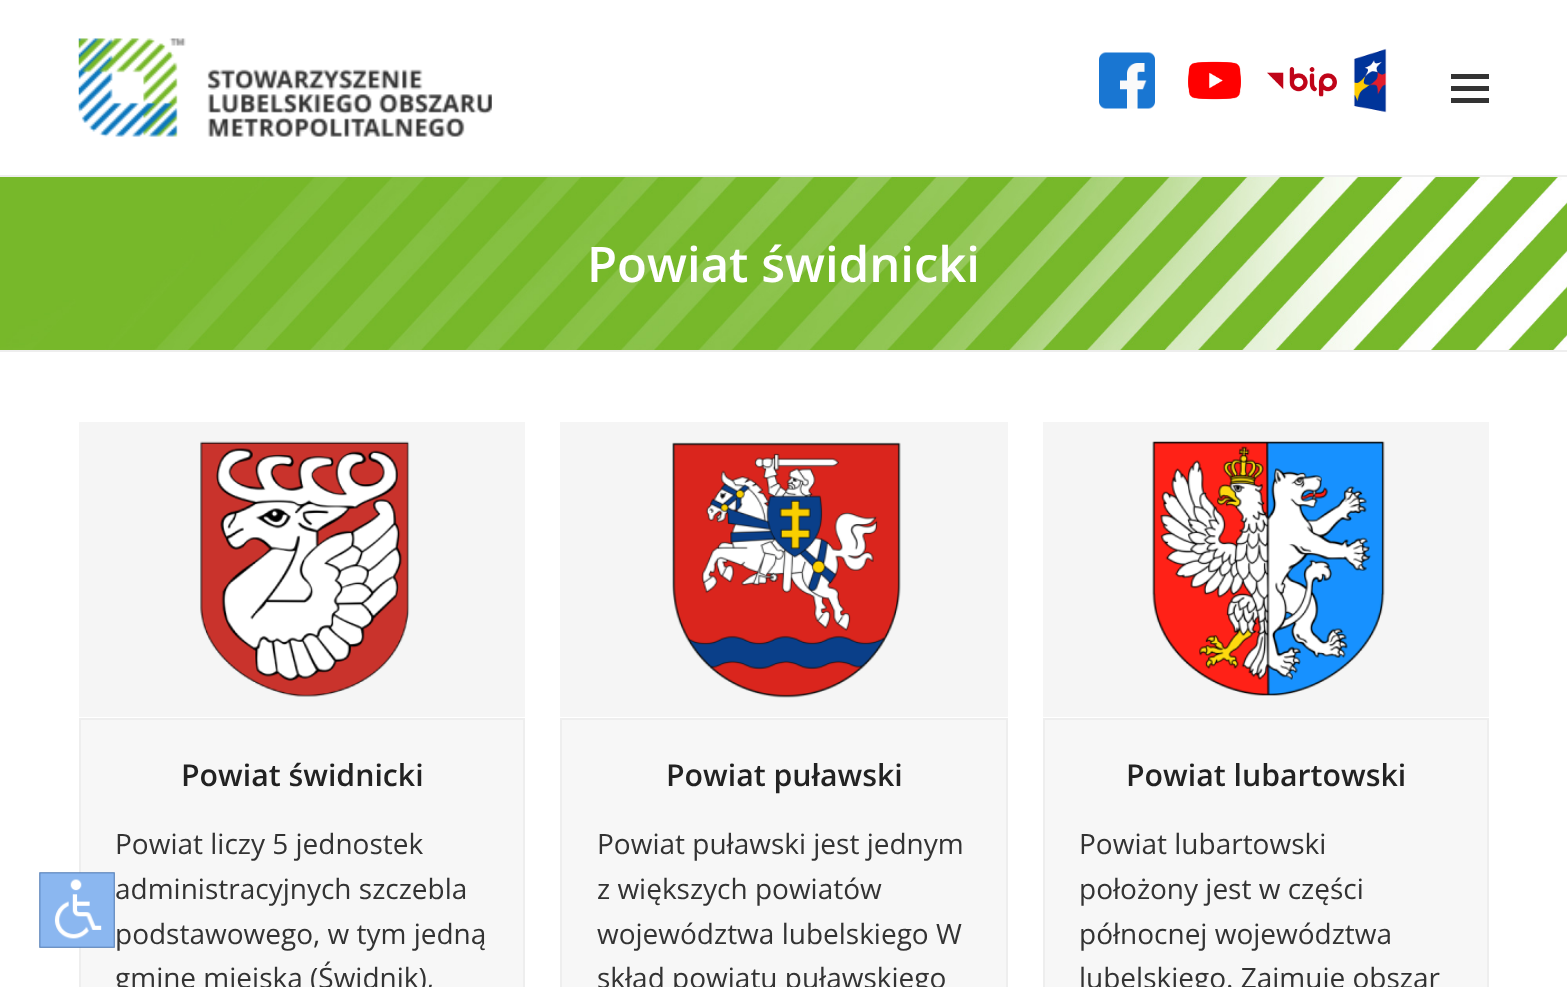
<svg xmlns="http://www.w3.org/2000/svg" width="1567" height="987">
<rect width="100%" height="100%" fill="#fff"/>
<rect x="80" y="719" width="444" height="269" fill="#f7f7f7" stroke="#eee" stroke-width="2"/>
<image x="39" y="872" width="76" height="76" href="media/1.png"/>
<image x="78" y="38" width="414" height="99" href="media/2.png"/>
<image x="1099" y="52" width="56" height="57" href="media/3.png"/>
<image x="1188" y="61" width="53" height="39" href="media/4.png"/>
<image x="1267" y="67" width="70" height="30" href="media/5.png"/>
<image x="1353" y="48" width="34" height="65" href="media/6.png"/>
<rect x="1451" y="86" width="38" height="5" fill="#333"/>
<rect x="1451" y="74" width="38" height="5" fill="#333"/>
<rect x="1451" y="98" width="38" height="5" fill="#333"/>
<image x="0" y="177" width="1567" height="173" href="media/7.png"/>
<rect y="175" width="1567" height="2" fill="#eee"/>
<rect y="350" width="1567" height="2" fill="#eee"/>
<text x="587" y="282" style="font-family:Open Sans;font-size:49px;font-weight:600;fill:#fff">Powiat świdnicki</text>
<image x="79" y="422" width="446" height="295" href="media/8.png"/>
<text x="181" y="786" style="font-family:Open Sans;font-size:30.25px;font-weight:600;fill:#222">Powiat świdnicki</text>
<text x="115" y="854" style="font-family:Open Sans;font-size:28px;fill:#333">Powiat liczy 5 jednostek</text>
<text x="115" y="899" style="font-family:Open Sans;font-size:28px;fill:#333">administracyjnych szczebla</text>
<text x="115" y="944" style="font-family:Open Sans;font-size:28px;fill:#333">podstawowego, w tym jedną</text>
<text x="115" y="988" style="font-family:Open Sans;font-size:28px;fill:#333">gminę miejską (Świdnik),</text>
<image x="560" y="422" width="448" height="295" href="media/9.png"/>
<rect x="561" y="719" width="446" height="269" fill="#f7f7f7" stroke="#eee" stroke-width="2"/>
<text x="666" y="786" style="font-family:Open Sans;font-size:30.25px;font-weight:600;fill:#222">Powiat puławski</text>
<text x="597" y="854" style="font-family:Open Sans;font-size:28px;fill:#333">Powiat puławski jest jednym</text>
<text x="597" y="899" style="font-family:Open Sans;font-size:28px;fill:#333">z większych powiatów</text>
<text x="597" y="944" style="font-family:Open Sans;font-size:28px;fill:#333">województwa lubelskiego W</text>
<text x="597" y="988" style="font-family:Open Sans;font-size:28px;fill:#333">skład powiatu puławskiego</text>
<image x="1043" y="422" width="446" height="295" href="media/10.png"/>
<rect x="1044" y="719" width="444" height="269" fill="#f7f7f7" stroke="#eee" stroke-width="2"/>
<text x="1126" y="786" style="font-family:Open Sans;font-size:30.25px;font-weight:600;fill:#222">Powiat lubartowski</text>
<text x="1079" y="854" style="font-family:Open Sans;font-size:28px;fill:#333">Powiat lubartowski</text>
<text x="1079" y="899" style="font-family:Open Sans;font-size:28px;fill:#333">położony jest w części</text>
<text x="1079" y="944" style="font-family:Open Sans;font-size:28px;fill:#333">północnej województwa</text>
<text x="1079" y="988" style="font-family:Open Sans;font-size:28px;fill:#333">lubelskiego. Zajmuje obszar</text>
</svg>
